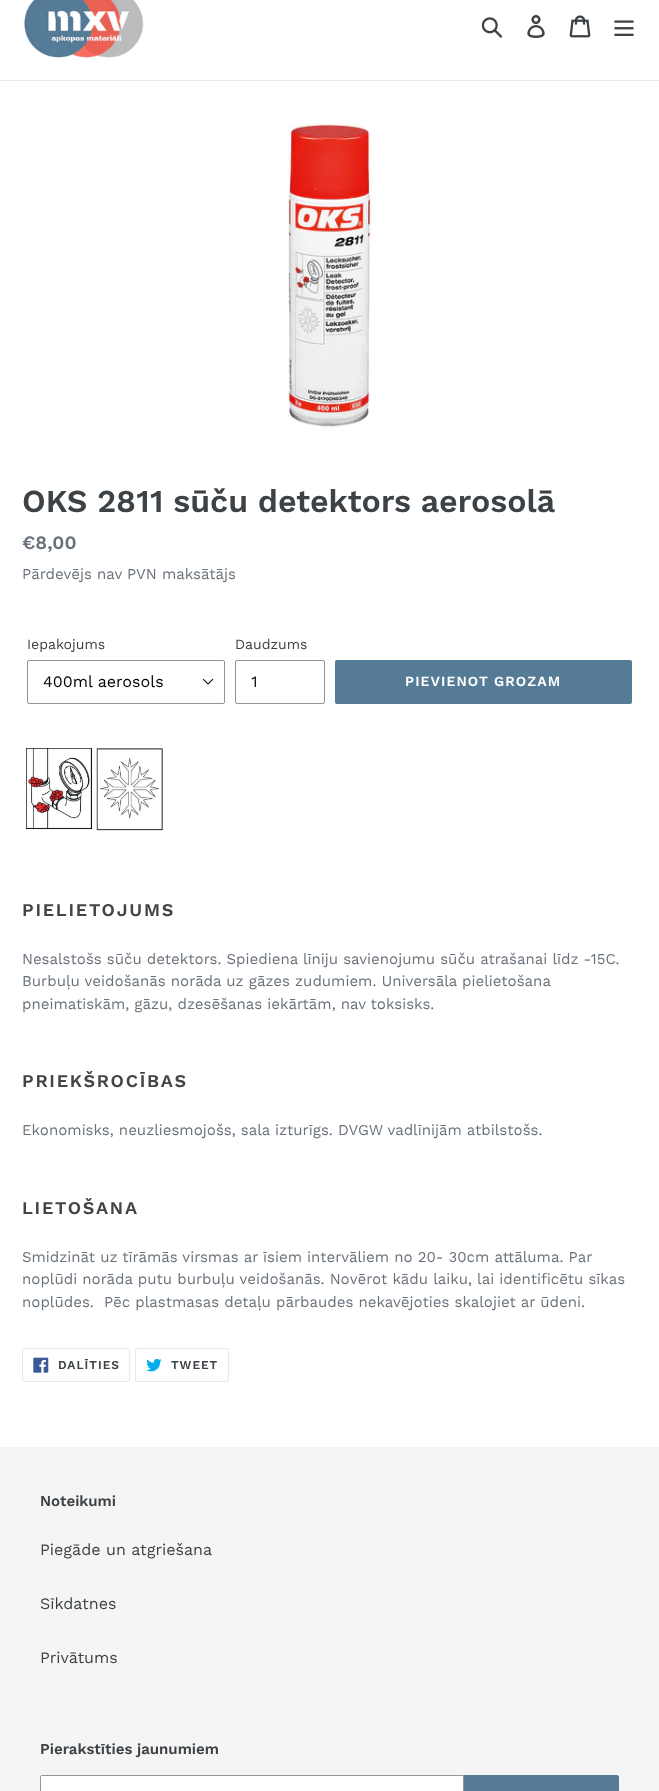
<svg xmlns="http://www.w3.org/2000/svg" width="659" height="1791">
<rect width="100%" height="100%" fill="#fff"/>
<rect y="80" width="659" height="1" fill="#e8e9eb"/>
<image x="22" y="0" width="122" height="61" href="media/1.png"/>
<image x="481" y="17" width="22" height="21" href="media/2.png"/>
<image x="527" y="15" width="18" height="23" href="media/3.png"/>
<image x="569" y="15" width="22" height="23" href="media/4.png"/>
<image x="614" y="20" width="20" height="16" href="media/5.png"/>
<image x="287" y="123" width="85" height="306" href="media/6.png"/>
<text x="22" y="512" style="font-family:Work Sans;font-size:32px;font-weight:600;fill:#3d4246">OKS 2811 sūču detektors aerosolā</text>
<text x="22" y="549" style="font-family:Work Sans;font-size:19px;font-weight:600;fill:#69727b">€8,00</text>
<text x="22" y="579" style="font-family:Work Sans;font-size:15px;fill:#69727b">Pārdevējs nav PVN maksātājs</text>
<text x="27" y="649" style="font-family:Work Sans;font-size:14px;fill:#3d4246">Iepakojums</text>
<image x="202" y="678" width="12" height="7" href="media/7.png"/>
<rect x="27.5" y="660.5" width="197" height="43" rx="1.5" fill="none" stroke="#949494"/>
<text x="43" y="687" style="font-family:Work Sans;font-size:16px;fill:#000">400ml aerosols</text>
<text x="235" y="649" style="font-family:Work Sans;font-size:14px;fill:#3d4246">Daudzums</text>
<rect x="235.5" y="660.5" width="89" height="43" rx="1.5" fill="none" stroke="#949494"/>
<text x="251" y="687" style="font-family:Work Sans;font-size:16px;fill:#000">1</text>
<rect x="335" y="660" width="297" height="44" rx="2" fill="#557b97"/>
<text x="405" y="686" style="font-family:Work Sans;font-size:14px;font-weight:600;letter-spacing:1.1px;fill:#fff">PIEVIENOT GROZAM</text>
<image x="26" y="748" width="137" height="83" href="media/8.png"/>
<text x="22" y="916" style="font-family:Work Sans;font-size:18px;font-weight:600;letter-spacing:1.75px;fill:#444">PIELIETOJUMS</text>
<text x="22" y="964" style="font-family:Work Sans;font-size:15px;fill:#69727b">Nesalstošs sūču detektors. Spiediena līniju savienojumu sūču atrašanai līdz -15C.</text>
<text x="22" y="986" style="font-family:Work Sans;font-size:15px;fill:#69727b">Burbuļu veidošanās norāda uz gāzes zudumiem. Universāla pielietošana</text>
<text x="22" y="1009" style="font-family:Work Sans;font-size:15px;fill:#69727b">pneimatiskām, gāzu, dzesēšanas iekārtām, nav toksisks.</text>
<text x="22" y="1087" style="font-family:Work Sans;font-size:18px;font-weight:600;letter-spacing:1.75px;fill:#444">PRIEKŠROCĪBAS</text>
<text x="22" y="1135" style="font-family:Work Sans;font-size:15px;fill:#69727b">Ekonomisks, neuzliesmojošs, sala izturīgs. DVGW vadlīnijām atbilstošs.</text>
<text x="22" y="1214" style="font-family:Work Sans;font-size:18px;font-weight:600;letter-spacing:1.75px;fill:#444">LIETOŠANA</text>
<text x="22" y="1262" style="font-family:Work Sans;font-size:15px;fill:#69727b">Smidzināt uz tīrāmās virsmas ar īsiem intervāliem no 20- 30cm attāluma. Par</text>
<text x="22" y="1284" style="font-family:Work Sans;font-size:15px;fill:#69727b">noplūdi norāda putu burbuļu veidošanās. Novērot kādu laiku, lai identificētu sīkas</text>
<text x="22" y="1307" style="font-family:Work Sans;font-size:15px;fill:#69727b" xml:space="preserve">noplūdes.  Pēc plastmasas detaļu pārbaudes nekavējoties skalojiet ar ūdeni.</text>
<rect x="22.5" y="1348.5" width="107" height="33" rx="1.5" fill="none" stroke="#e8e9eb"/>
<image x="33" y="1357" width="16" height="16" href="media/9.png"/>
<text x="58" y="1369" style="font-family:Work Sans;font-size:12px;font-weight:600;letter-spacing:1px;fill:#3d4246">DALĪTIES</text>
<rect x="135.5" y="1348.5" width="93" height="33" rx="1.5" fill="none" stroke="#e8e9eb"/>
<image x="146" y="1358" width="16" height="14" href="media/10.png"/>
<text x="171" y="1369" style="font-family:Work Sans;font-size:12px;font-weight:600;letter-spacing:1px;fill:#3d4246">TWEET</text>
<rect y="1447" width="659" height="344" fill="#f5f5f5"/>
<text x="40" y="1506" style="font-family:Work Sans;font-size:15px;font-weight:600;fill:#3d4246">Noteikumi</text>
<text x="40" y="1555" style="font-family:Work Sans;font-size:16px;fill:#3d4246">Piegāde un atgriešana</text>
<text x="40" y="1609" style="font-family:Work Sans;font-size:16px;fill:#3d4246">Sīkdatnes</text>
<text x="40" y="1663" style="font-family:Work Sans;font-size:16px;fill:#3d4246">Privātums</text>
<text x="40" y="1754" style="font-family:Work Sans;font-size:15px;font-weight:600;fill:#3d4246">Pierakstīties jaunumiem</text>
<path d="M42 1775.5h421.5v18h-421.5c-1 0-1.5-.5-1.5-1.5v-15c0-1 .5-1.5 1.5-1.5z" fill="#fff" stroke="#949494"/>
<path d="M464 1775h153c1 0 2 1 2 2v14c0 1-1 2-2 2h-153z" fill="#557b97"/>
</svg>
